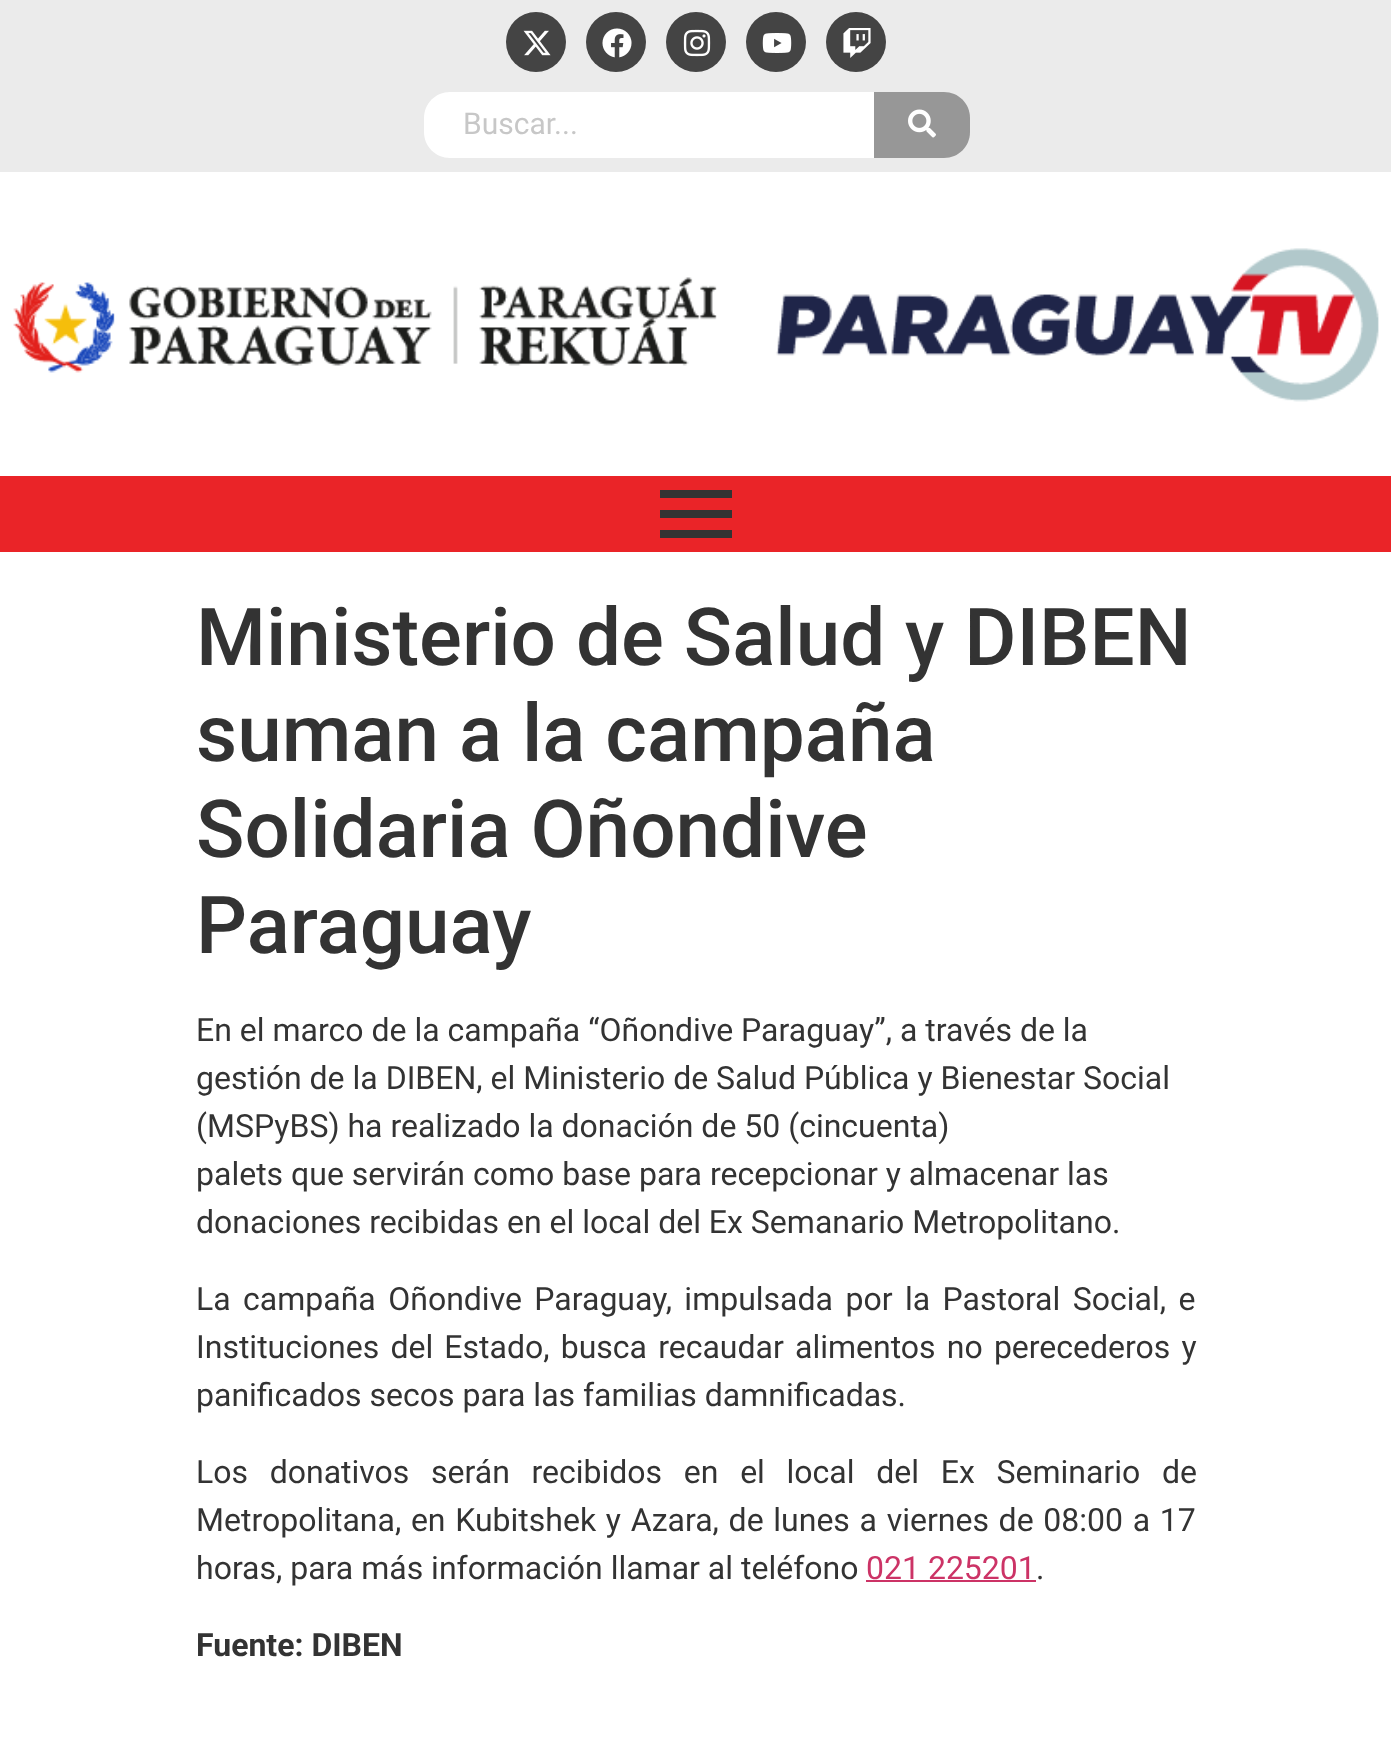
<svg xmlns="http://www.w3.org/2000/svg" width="1391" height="1748">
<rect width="100%" height="100%" fill="#fff"/>
<rect width="1391" height="172" fill="#ebebeb"/>
<circle cx="536" cy="42" r="30" fill="#444"/>
<image x="523" y="30" width="28" height="26" href="media/1.png"/>
<circle cx="616" cy="42" r="30" fill="#444"/>
<image x="602" y="28" width="30" height="30" href="media/2.png"/>
<circle cx="696" cy="42" r="30" fill="#444"/>
<image x="683" y="29" width="28" height="28" href="media/3.png"/>
<circle cx="776" cy="42" r="30" fill="#444"/>
<image x="762" y="33" width="30" height="20" href="media/4.png"/>
<circle cx="856" cy="42" r="30" fill="#444"/>
<image x="843" y="28" width="28" height="30" href="media/5.png"/>
<path d="M450 92h424v66h-424c-14.5 0-26-11.5-26-26v-14c0-14.5 11.5-26 26-26z" fill="#fff"/>
<text x="463" y="134" style="font-family:Roboto;font-size:30px;fill:#c7c7c7">Buscar...</text>
<path d="M874 92h70c14.5 0 26 11.5 26 26v14c0 14.5-11.5 26-26 26h-70z" fill="#979797"/>
<image x="908" y="109" width="28" height="29" href="media/6.png"/>
<image x="13" y="248" width="1366" height="154" href="media/7.png"/>
<rect y="476" width="1391" height="76" fill="#ea2428"/>
<rect x="660" y="490" width="72" height="8" fill="#333"/>
<rect x="660" y="510" width="72" height="8" fill="#333"/>
<rect x="660" y="530" width="72" height="8" fill="#333"/>
<text x="196" y="665" style="font-family:Roboto;font-size:80px;font-weight:500;fill:#333">Ministerio de Salud y DIBEN</text>
<text x="196" y="761" style="font-family:Roboto;font-size:80px;font-weight:500;fill:#333">suman a la campaña</text>
<text x="196" y="857" style="font-family:Roboto;font-size:80px;font-weight:500;fill:#333">Solidaria Oñondive</text>
<text x="196" y="953" style="font-family:Roboto;font-size:80px;font-weight:500;fill:#333">Paraguay</text>
<text x="196" y="1041" style="font-family:Roboto;font-size:32px;fill:#333">En el marco de la campaña “Oñondive Paraguay”, a través de la</text>
<text x="196" y="1089" style="font-family:Roboto;font-size:32px;fill:#333">gestión de la DIBEN, el Ministerio de Salud Pública y Bienestar Social</text>
<text x="196" y="1137" style="font-family:Roboto;font-size:32px;fill:#333">(MSPyBS) ha realizado la donación de 50 (cincuenta)</text>
<text x="196" y="1185" style="font-family:Roboto;font-size:32px;fill:#333">palets que servirán como base para recepcionar y almacenar las</text>
<text x="196" y="1233" style="font-family:Roboto;font-size:32px;fill:#333">donaciones recibidas en el local del Ex Semanario Metropolitano.</text>
<text x="196" y="1310" word-spacing="4.5" style="font-family:Roboto;font-size:32px;fill:#333">La campaña Oñondive Paraguay, impulsada por la Pastoral Social, e</text>
<text x="196" y="1358" word-spacing="3.25" style="font-family:Roboto;font-size:32px;fill:#333">Instituciones del Estado, busca recaudar alimentos no perecederos y</text>
<text x="196" y="1406" style="font-family:Roboto;font-size:32px;fill:#333">panificados secos para las familias damnificadas.</text>
<text x="196" y="1483" word-spacing="13.75" style="font-family:Roboto;font-size:32px;fill:#333">Los donativos serán recibidos en el local del Ex Seminario de</text>
<text x="196" y="1531" word-spacing="1.75" style="font-family:Roboto;font-size:32px;fill:#333">Metropolitana, en Kubitshek y Azara, de lunes a viernes de 08:00 a 17</text>
<text x="196" y="1579" style="font-family:Roboto;font-size:32px;fill:#333">horas, para más información llamar al teléfono</text>
<text x="866" y="1579" style="font-family:Roboto;font-size:32px;fill:#c36">021 225201</text>
<rect x="866" y="1580" width="170" height="2" fill="#c36"/>
<text x="1036" y="1579" style="font-family:Roboto;font-size:32px;fill:#333">.</text>
<text x="196" y="1656" style="font-family:Roboto;font-size:32px;font-weight:bold;fill:#333">Fuente: DIBEN</text>
</svg>
